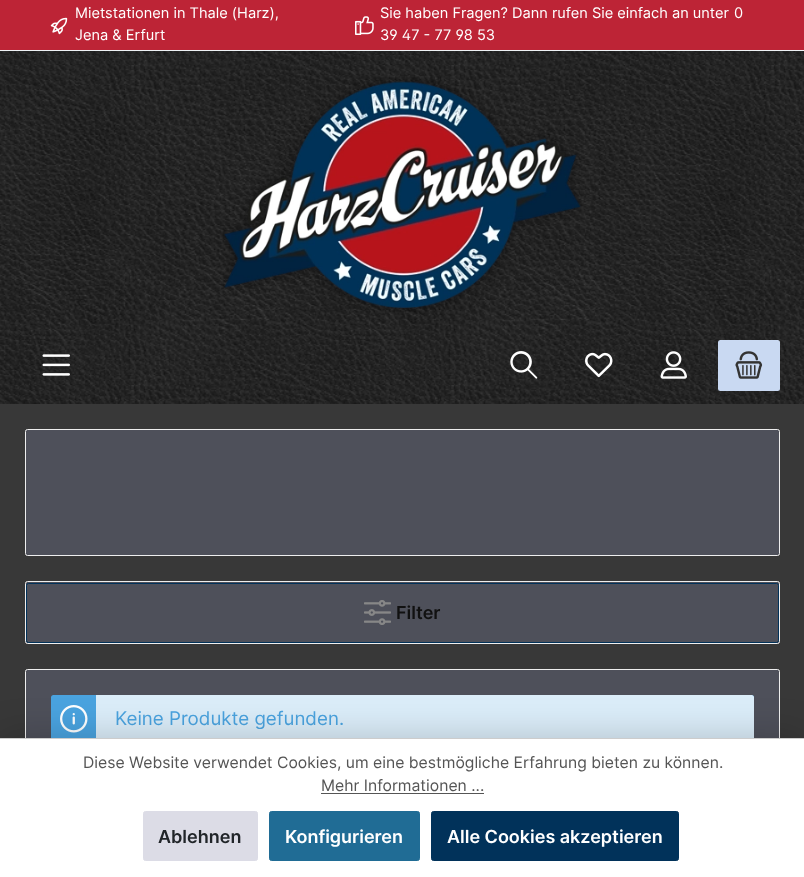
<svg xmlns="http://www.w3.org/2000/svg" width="804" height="877">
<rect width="100%" height="100%" fill="#383838"/>
<rect width="804" height="50" fill="#bd2436"/>
<rect y="50" width="804" height="1" fill="#eef2f5"/>
<image x="50" y="17" width="18" height="18" href="media/1.png"/>
<text x="75" y="18" style="font-family:Inter;font-size:14.6px;fill:#fff">Mietstationen in Thale (Harz),</text>
<text x="75" y="40" style="font-family:Inter;font-size:14.6px;fill:#fff">Jena &amp; Erfurt</text>
<image x="355" y="16" width="19" height="19" href="media/2.png"/>
<text x="380" y="18" style="font-family:Inter;font-size:14.6px;fill:#fff">Sie haben Fragen? Dann rufen Sie einfach an unter</text>
<text x="734" y="18" style="font-family:Inter;font-size:14.6px;fill:#fff">0</text>
<text x="380" y="40" style="font-family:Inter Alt;font-size:14.6px;fill:#fff">39 47 - 77 98 53</text>
<image x="0" y="51" width="804" height="353" href="media/3.png"/>
<image x="223" y="77" width="359" height="235" href="media/4.png"/>
<image x="42" y="354" width="28" height="22" href="media/5.png"/>
<image x="510" y="351" width="28" height="28" href="media/6.png"/>
<image x="585" y="352" width="28" height="26" href="media/7.png"/>
<image x="660" y="351" width="27" height="28" href="media/8.png"/>
<rect x="718" y="340" width="62" height="51" rx="2.5" fill="#c9d9f2"/>
<image x="735" y="351" width="28" height="28" href="media/9.png"/>
<rect x="25.5" y="429.5" width="754" height="126" rx="2" fill="#4e505a" stroke="#eee"/>
<rect x="25.5" y="581.5" width="754" height="62" rx="2" fill="#4e505a" stroke="#eee"/>
<rect x="26.5" y="583.5" width="752" height="59" rx="2" fill="none" stroke="#01325a"/>
<image x="364" y="600" width="27" height="25" href="media/10.png"/>
<text x="396" y="619" style="font-family:Inter;font-size:18px;font-weight:600;fill:#111">Filter</text>
<rect x="25.5" y="669.5" width="754" height="154" rx="2" fill="#4e505a" stroke="#eee"/>
<rect x="51" y="695" width="703" height="46" rx="2.5" fill="#4aa3df"/>
<image x="60" y="705" width="28" height="28" href="media/11.png"/>
<path d="M96 695h655.5c1.5 0 2.5 1 2.5 2.5v41c0 1.5-1 2.5-2.5 2.5h-655.5z" fill="#dbedf9"/>
<text x="115" y="725" style="font-family:Inter;font-size:18.75px;fill:#4aa3df">Keine Produkte gefunden.</text>
<rect y="738" width="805" height="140" fill="#00000033" filter="blur(19px)"/>
<rect y="739" width="804" height="138" fill="#fff"/>
<rect y="738" width="804" height="1" fill="#ccc"/>
<text x="83" y="768" style="font-family:Inter;font-size:15.75px;fill:#555">Diese Website verwendet Cookies, um eine bestmögliche Erfahrung bieten zu können.</text>
<text x="321" y="791" style="font-family:Inter;font-size:15.75px;fill:#555">Mehr Informationen ...</text>
<rect x="321" y="793" width="163" height="1" fill="#555"/>
<rect x="143.5" y="811.5" width="114" height="49" rx="2" fill="#dcdce6" stroke="#dcdce6"/>
<text x="158" y="843" style="font-family:Inter;font-size:18px;font-weight:600;fill:#212529">Ablehnen</text>
<rect x="269.5" y="811.5" width="150" height="49" rx="2" fill="#206c95" stroke="#206c95"/>
<text x="285" y="843" style="font-family:Inter;font-size:18px;font-weight:600;fill:#fff">Konfigurieren</text>
<rect x="431.5" y="811.5" width="247" height="49" rx="2" fill="#01325a" stroke="#01325a"/>
<text x="447" y="843" style="font-family:Inter;font-size:18px;font-weight:600;fill:#fff">Alle Cookies akzeptieren</text>
</svg>
